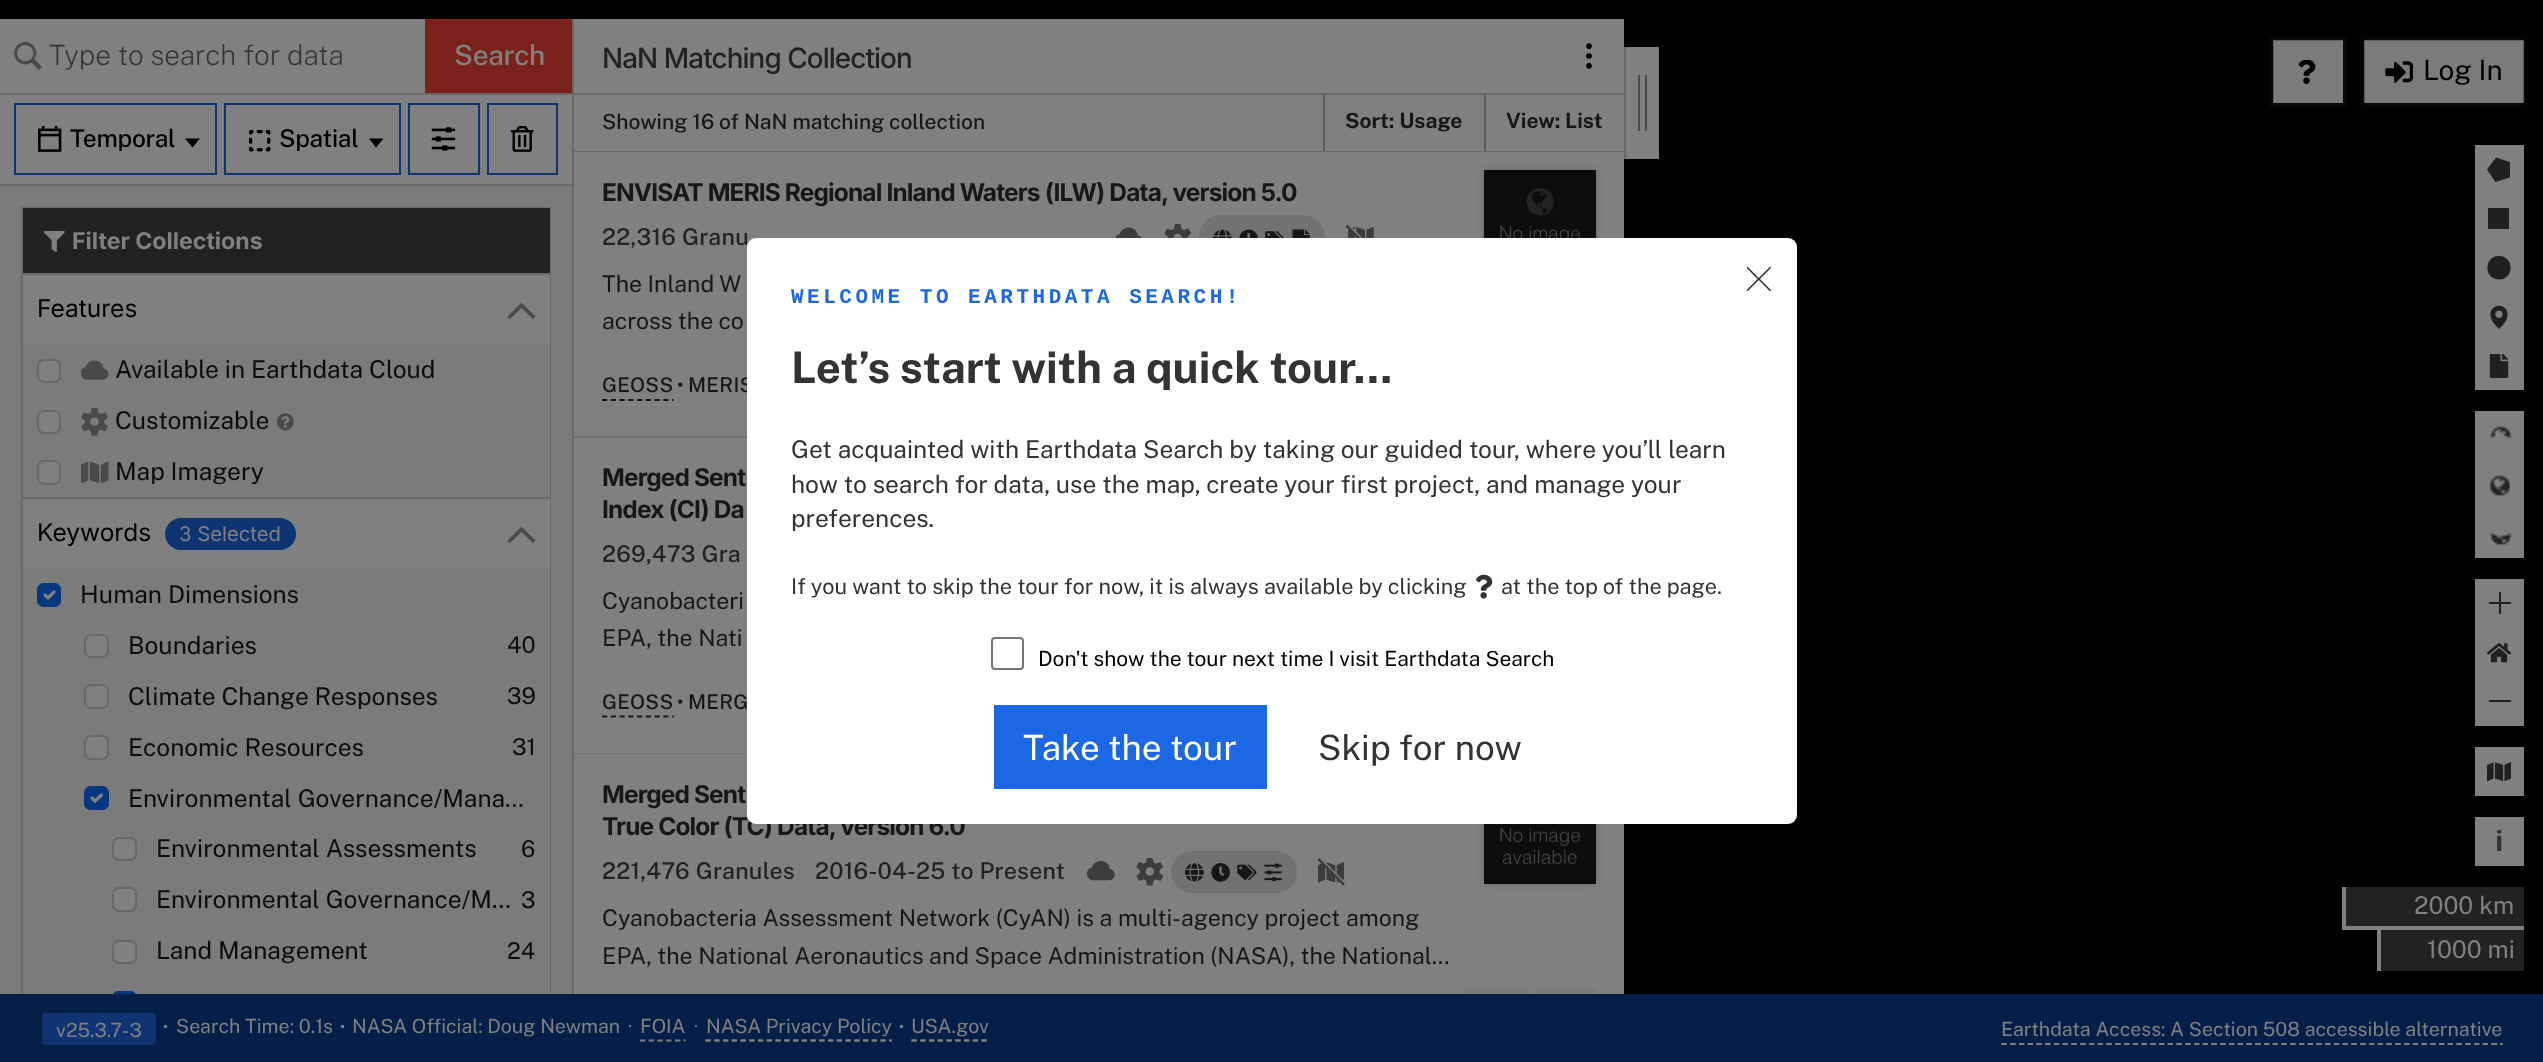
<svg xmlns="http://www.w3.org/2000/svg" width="2543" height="1062">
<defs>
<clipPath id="clip1"><rect x="1318" y="858" width="28" height="28"/></clipPath>
</defs>
<rect width="100%" height="100%" fill="#000"/>
<rect y="186" width="572" height="808" fill="#7b7b7b"/>
<rect x="572" y="19" width="2" height="975" fill="#696969"/>
<rect y="19" width="572" height="165" fill="#808080"/>
<rect y="93" width="572" height="2" fill="#696969"/>
<image x="14" y="42" width="28" height="28" href="media/1.png"/>
<text x="49" y="65" style="font-family:Public Sans;font-size:28px;font-weight:200;fill:#333">Type to search for data</text>
<rect x="425" y="19" width="147" height="74" fill="#7b211c"/>
<text x="454" y="65" style="font-family:Public Sans;font-size:28px;font-weight:500;letter-spacing:-0.25px;fill:#808080">Search</text>
<rect x="15" y="104" width="201" height="70" fill="none" stroke="#0e3472" stroke-width="2"/>
<image x="38" y="126" width="24" height="26" href="media/2.png"/>
<text x="70" y="147" style="font-family:Public Sans;font-size:24.5px;font-weight:500;letter-spacing:-0.25px;fill:#000">Temporal</text>
<path d="M185 138.5h15l-7.5 9z" fill="#000"/>
<rect x="225" y="104" width="175" height="70" fill="none" stroke="#0e3472" stroke-width="2"/>
<image x="249" y="130" width="22" height="22" href="media/3.png"/>
<text x="279" y="147" style="font-family:Public Sans;font-size:24.5px;font-weight:500;letter-spacing:-0.25px;fill:#000">Spatial</text>
<path d="M369 138.5h14.5l-7.5 9z" fill="#000"/>
<rect x="409" y="104" width="70" height="70" fill="none" stroke="#0e3472" stroke-width="2"/>
<image x="431" y="127" width="25" height="24" href="media/4.png"/>
<rect x="488" y="104" width="69" height="70" fill="none" stroke="#0e3472" stroke-width="2"/>
<image x="510" y="126" width="24" height="26" href="media/5.png"/>
<rect y="184" width="572" height="2" fill="#696969"/>
<rect x="22" y="208" width="528" height="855" fill="none" stroke="#696969" stroke-width="2"/>
<rect x="23" y="208" width="527" height="65" fill="#222224"/>
<rect x="23" y="273" width="527" height="2" fill="#696969"/>
<image x="44" y="231" width="21" height="21" href="media/6.png"/>
<text x="72" y="249" style="font-family:Inter;font-size:23.1px;font-weight:bold;fill:#808080">Filter Collections</text>
<rect x="23" y="497" width="527" height="2" fill="#696969"/>
<rect x="23" y="275" width="527" height="70" fill="#808080"/>
<text x="37" y="317" style="font-family:Inter;font-size:24.5px;fill:#000">Features</text>
<path d="M521.5 308l-11.5 11l-2.5-2.5l14-14l14 14l-2.5 2.5z" fill="#4b4b4d" fill-rule="evenodd"/>
<rect x="549" y="345" width="1" height="152" fill="#7b7b7b"/>
<rect x="38" y="360" width="22" height="22" rx="6" fill="#808080" stroke="#696969" stroke-width="2"/>
<image x="81" y="360" width="28" height="20" href="media/7.png"/>
<text x="115" y="378" style="font-family:Public Sans;font-size:24.5px;fill:#0c0c0e">Available in Earthdata Cloud</text>
<rect x="38" y="411" width="22" height="22" rx="6" fill="#808080" stroke="#696969" stroke-width="2"/>
<image x="81" y="408" width="27" height="28" href="media/8.png"/>
<text x="115" y="429" style="font-family:Public Sans;font-size:24.5px;fill:#0c0c0e">Customizable</text>
<image x="277" y="413" width="17" height="18" href="media/9.png"/>
<rect x="38" y="461" width="22" height="23" rx="6" fill="#808080" stroke="#696969" stroke-width="2"/>
<image x="81" y="461" width="28" height="23" href="media/10.png"/>
<text x="115" y="480" style="font-family:Public Sans;font-size:24.5px;fill:#0c0c0e">Map Imagery</text>
<rect x="23" y="499" width="527" height="70" fill="#808080"/>
<text x="37" y="541" style="font-family:Inter;font-size:24.5px;fill:#000">Keywords</text>
<rect x="165" y="518" width="131" height="32" rx="16" fill="#0e3472"/>
<text x="179" y="541" style="font-family:Inter;font-size:20.25px;fill:#808080">3 Selected</text>
<path d="M521.5 532l-11.5 11l-2.5-2.5l14-14l14 14l-2.5 2.5z" fill="#4b4b4d" fill-rule="evenodd"/>
<rect x="549" y="569" width="1" height="425" fill="#7b7b7b"/>
<rect x="37" y="583" width="24" height="24" rx="7" fill="#07377f"/>
<path d="M45 595l3 3l6-6" fill="none" stroke="#808080" stroke-width="3.2" stroke-linecap="round" stroke-linejoin="round"/>
<rect x="38" y="584" width="22" height="22" rx="6" fill="none" stroke="#07377f" stroke-width="2"/>
<text x="80" y="603" style="font-family:Public Sans;font-size:24.5px;fill:#0c0c0e">Human Dimensions</text>
<rect x="85" y="635" width="23" height="22" rx="6" fill="#808080" stroke="#696969" stroke-width="2"/>
<text x="128" y="654" style="font-family:Public Sans;font-size:24.5px;fill:#0c0c0e">Boundaries</text>
<text x="507" y="653" style="font-family:Public Sans;font-size:23.1px;fill:#0c0c0e">40</text>
<rect x="85" y="685" width="23" height="23" rx="6" fill="#808080" stroke="#696969" stroke-width="2"/>
<text x="128" y="705" style="font-family:Public Sans;font-size:24.5px;fill:#0c0c0e">Climate Change Responses</text>
<text x="507" y="704" style="font-family:Public Sans;font-size:23.1px;fill:#0c0c0e">39</text>
<rect x="85" y="736" width="23" height="23" rx="6" fill="#808080" stroke="#696969" stroke-width="2"/>
<text x="128" y="756" style="font-family:Public Sans;font-size:24.5px;fill:#0c0c0e">Economic Resources</text>
<text x="512" y="755" style="font-family:Public Sans;font-size:23.1px;fill:#0c0c0e">31</text>
<rect x="84" y="786" width="25" height="24" rx="7" fill="#07377f"/>
<path d="M92 798l3 3l6.5-6" fill="none" stroke="#808080" stroke-width="3.2" stroke-linecap="round" stroke-linejoin="round"/>
<rect x="85" y="787" width="23" height="22" rx="6" fill="none" stroke="#07377f" stroke-width="2"/>
<text x="128" y="807" style="font-family:Public Sans;font-size:24.5px;fill:#0c0c0e">Environmental Governance/Mana…</text>
<rect x="113" y="838" width="23" height="22" rx="6" fill="#808080" stroke="#696969" stroke-width="2"/>
<text x="156" y="857" style="font-family:Public Sans;font-size:24.5px;fill:#0c0c0e">Environmental Assessments</text>
<text x="521" y="857" style="font-family:Public Sans;font-size:23.1px;fill:#0c0c0e">6</text>
<rect x="113" y="888" width="23" height="23" rx="6" fill="#808080" stroke="#696969" stroke-width="2"/>
<text x="156" y="908" style="font-family:Public Sans;font-size:24.5px;fill:#0c0c0e">Environmental Governance/M…</text>
<text x="521" y="908" style="font-family:Public Sans;font-size:23.1px;fill:#0c0c0e">3</text>
<rect x="113" y="941" width="23" height="22" rx="6" fill="#808080" stroke="#696969" stroke-width="2"/>
<text x="156" y="959" style="font-family:Public Sans;font-size:24.5px;fill:#0c0c0e">Land Management</text>
<text x="507" y="959" style="font-family:Public Sans;font-size:23.1px;fill:#0c0c0e">24</text>
<path d="M119 991h11c4 0 7 3 7 7v-4h-25v4c0-4 3-7 7-7z" fill="#07377f"/>
<rect x="113" y="992" width="23" height="22" rx="6" fill="none" stroke="#07377f" stroke-width="2"/>
<rect x="574" y="19" width="1050" height="734" fill="#808080"/>
<rect x="574" y="151" width="1050" height="1" fill="#696969"/>
<text x="602" y="68" style="font-family:Inter;font-size:28px;font-weight:500;letter-spacing:-0.88px;fill:#222224">NaN Matching Collection</text>
<image x="1586" y="43" width="6" height="26" href="media/11.png"/>
<rect x="574" y="93" width="1050" height="2" fill="#696969"/>
<text x="602" y="129" style="font-family:Public Sans;font-size:21px;font-weight:500;fill:#171719">Showing 16 of NaN matching collection</text>
<rect x="1323" y="95" width="2" height="56" fill="#5d5d5e"/>
<text x="1345" y="128" style="font-family:Public Sans;font-size:21px;font-weight:bold;fill:#171719">Sort: Usage</text>
<rect x="1484" y="95" width="2" height="56" fill="#5d5d5e"/>
<text x="1506" y="128" style="font-family:Public Sans;font-size:21px;font-weight:bold;fill:#171719">View: List</text>
<rect x="574" y="436" width="173" height="2" fill="#6f7173"/>
<text x="602" y="201" style="font-family:Inter;font-size:24.5px;font-weight:bold;letter-spacing:-0.88px;fill:#171719">ENVISAT MERIS Regional Inland Waters (ILW) Data, version 5.0</text>
<text x="602" y="245" style="font-family:Public Sans;font-size:23.1px;font-weight:500;letter-spacing:0.25px;fill:#222224">22,316 Granu</text>
<image x="1115" y="227" width="27" height="11" href="media/12.png"/>
<image x="1164" y="224" width="28" height="14" href="media/13.png"/>
<rect x="1199" y="215" width="126" height="44" rx="22" fill="#727272"/>
<image x="1213" y="229" width="19" height="9" href="media/14.png"/>
<image x="1239" y="229" width="19" height="9" href="media/15.png"/>
<image x="1265" y="231" width="19" height="7" href="media/16.png"/>
<image x="1292" y="229" width="18" height="9" href="media/17.png"/>
<image x="1348" y="227" width="26" height="11" href="media/18.png"/>
<path d="M1371 252l-25.5-25.5l2.5-2.5l25.5 25.5z" fill="#3c3c3d" fill-rule="evenodd"/>
<path d="M1373 250.5l-25.5-25.5l1-1l25.5 25.5z" fill="#808080" fill-rule="evenodd"/>
<text x="602" y="292" style="font-family:Public Sans;font-size:23.1px;fill:#171719">The Inland W</text>
<text x="602" y="329" style="font-family:Public Sans;font-size:23.1px;fill:#171719">across the co</text>
<rect x="1484" y="170" width="112" height="112" fill="#0000002e" filter="blur(3.5px)"/>
<rect x="1484" y="170" width="112" height="68" fill="#0c0c0e"/>
<image x="1500" y="187" width="80" height="51" href="media/19.png"/>
<text x="602" y="392" style="font-family:Public Sans;font-size:20.25px;font-weight:500;letter-spacing:0.25px;fill:#171719">GEOSS</text>
<path d="M602 400h71.5" fill="none" stroke="#171719" stroke-width="1.8" stroke-dasharray="5.25 3.5"/>
<text x="677" y="392" style="font-family:Public Sans;font-size:20.25px;font-weight:500;letter-spacing:0.25px;fill:#171719">•</text>
<text x="688" y="392" style="font-family:Public Sans;font-size:20.25px;font-weight:500;letter-spacing:0.25px;fill:#171719">MERIS</text>
<rect x="574" y="753" width="173" height="1" fill="#6f7173"/>
<text x="602" y="486" style="font-family:Inter;font-size:24.5px;font-weight:bold;letter-spacing:-0.88px;fill:#171719">Merged Sent</text>
<text x="602" y="518" style="font-family:Inter;font-size:24.5px;font-weight:bold;letter-spacing:-0.88px;fill:#171719">Index (CI) Da</text>
<text x="602" y="562" style="font-family:Public Sans;font-size:23.1px;font-weight:500;letter-spacing:0.25px;fill:#222224">269,473 Gra</text>
<text x="602" y="609" style="font-family:Public Sans;font-size:23.1px;fill:#171719">Cyanobacteri</text>
<text x="602" y="646" style="font-family:Public Sans;font-size:23.1px;fill:#171719">EPA, the Nati</text>
<text x="602" y="709" style="font-family:Public Sans;font-size:20.25px;font-weight:500;letter-spacing:0.25px;fill:#171719">GEOSS</text>
<path d="M602 716.5h71.5" fill="none" stroke="#171719" stroke-width="1.8" stroke-dasharray="5.25 3.5"/>
<text x="677" y="709" style="font-family:Public Sans;font-size:20.25px;font-weight:500;letter-spacing:0.25px;fill:#171719">•</text>
<text x="688" y="709" style="font-family:Public Sans;font-size:20.25px;font-weight:500;letter-spacing:0.25px;fill:#171719">MERG</text>
<rect x="574" y="754" width="1050" height="240" fill="#808080"/>
<text x="602" y="803" style="font-family:Inter;font-size:24.5px;font-weight:bold;letter-spacing:-0.88px;fill:#171719">Merged Sent</text>
<text x="602" y="835" style="font-family:Inter;font-size:24.5px;font-weight:bold;letter-spacing:-0.88px;fill:#171719">True Color (TC) Data, version 6.0</text>
<text x="602" y="879" style="font-family:Public Sans;font-size:23.1px;font-weight:500;letter-spacing:0.25px;fill:#222224">221,476 Granules</text>
<text x="815" y="879" style="font-family:Public Sans;font-size:23.1px;font-weight:500;letter-spacing:0.25px;fill:#222224">2016-04-25 to Present</text>
<image x="1087" y="861" width="28" height="20" href="media/20.png"/>
<image x="1136" y="858" width="28" height="28" href="media/21.png"/>
<rect x="1171" y="851" width="126" height="42" rx="21" fill="#727272"/>
<image x="1185" y="863" width="19" height="19" href="media/22.png"/>
<image x="1211" y="863" width="19" height="19" href="media/23.png"/>
<image x="1237" y="864" width="20" height="16" href="media/24.png"/>
<image x="1264" y="863" width="18" height="19" href="media/25.png"/>
<image x="1318" y="862" width="26" height="21" href="media/26.png"/>
<g clip-path="url(#clip1)">
<path d="M1343 885.5l-25.5-25.5l2.5-2.5l25.5 25.5z" fill="#3c3c3d" fill-rule="evenodd"/>
</g>
<path d="M1345 884l-25.5-25.5l1-1l25.5 25.5z" fill="#808080" fill-rule="evenodd"/>
<text x="602" y="926" style="font-family:Public Sans;font-size:23.1px;fill:#171719">Cyanobacteria Assessment Network (CyAN) is a multi-agency project among</text>
<text x="602" y="964" style="font-family:Public Sans;font-size:23.1px;fill:#171719">EPA, the National Aeronautics and Space Administration (NASA), the National…</text>
<rect x="1484" y="772" width="112" height="112" fill="#0000002e" filter="blur(3.5px)"/>
<rect x="1484" y="865" width="112" height="19" fill="#0c0c0e"/>
<image x="1484" y="824" width="112" height="41" href="media/27.png"/>
<rect x="1463" y="989" width="63" height="5" fill="#7b7b7b"/>
<rect x="1533" y="989" width="63" height="5" fill="#7b7b7b"/>
<rect x="1626" y="47" width="33" height="112" fill="#808080"/>
<rect x="1624" y="47" width="2" height="112" fill="#696969"/>
<rect x="1645" y="75" width="2" height="56" fill="#4b4b4d"/>
<rect x="1638" y="75" width="2" height="56" fill="#4b4b4d"/>
<rect x="2273" y="40" width="70" height="63" fill="#7b7b7b"/>
<rect x="2272" y="39" width="73" height="66" fill="none" stroke="#1717194d" stroke-width="4"/>
<image x="2298" y="60" width="18" height="24" href="media/28.png"/>
<rect x="2364" y="40" width="160" height="63" fill="#7b7b7b"/>
<rect x="2363" y="39" width="162" height="66" fill="none" stroke="#1717194d" stroke-width="4"/>
<image x="2385" y="61" width="28" height="22" href="media/29.png"/>
<text x="2423" y="80" style="font-family:Public Sans;font-size:28px;fill:#000">Log In</text>
<rect x="2475" y="145" width="49" height="245" fill="#808080"/>
<path d="M2495.5 182l-8.5-12.5l9-12l14 4.5v15.5z" fill="#202020"/>
<rect x="2488" y="208" width="21" height="21" fill="#202020"/>
<path d="M2499 256c-15.5 0-15.5 23.5 0 23.5c15.5 0 15.5-23.5 0-23.5z" fill="#202020"/>
<image x="2490" y="305" width="18" height="24" href="media/30.png"/>
<image x="2489" y="354" width="20" height="24" href="media/31.png"/>
<rect x="2475" y="411" width="49" height="147" fill="#808080"/>
<image x="2490" y="426" width="22" height="14" href="media/32.png"/>
<image x="2489" y="475" width="22" height="22" href="media/33.png"/>
<image x="2489" y="532" width="23" height="14" href="media/34.png"/>
<rect x="2475" y="579" width="49" height="147" fill="#808080"/>
<rect x="2489" y="602" width="22" height="2" fill="#202020"/>
<rect x="2499" y="592" width="2" height="22" fill="#202020"/>
<image x="2487" y="643" width="24" height="20" href="media/35.png"/>
<rect x="2489" y="700" width="22" height="2" fill="#202020"/>
<rect x="2475" y="747" width="49" height="49" fill="#808080"/>
<image x="2487" y="762" width="24" height="20" href="media/36.png"/>
<rect x="2475" y="817" width="49" height="49" fill="#808080"/>
<text x="2495" y="851" style="font-family:Noto Sans;font-size:28px;font-weight:bold;fill:#333">i</text>
<rect x="2346" y="887" width="178" height="39" fill="#222224"/>
<rect x="2342" y="928" width="182" height="2" fill="#808080"/>
<rect x="2342" y="887" width="4" height="42" fill="#808080"/>
<rect x="2345" y="926" width="179" height="2" fill="#808080"/>
<text x="2414" y="914" style="font-family:Public Sans;font-size:24.5px;fill:#808080">2000 km</text>
<rect x="2381" y="930" width="143" height="41" fill="#222224"/>
<rect x="2377" y="928" width="4" height="43" fill="#808080"/>
<text x="2427" y="958" style="font-family:Public Sans;font-size:24.5px;fill:#808080">1000 mi</text>
<rect y="994" width="2543" height="68" fill="#061f49"/>
<rect x="42" y="1013" width="114" height="32" rx="4" fill="#0e3472"/>
<text x="56" y="1037" style="font-family:Public Sans;font-size:19.6px;fill:#808080">v25.3.7-3</text>
<rect x="164" y="1025" width="3" height="3" fill="#7c7d7e"/>
<text x="176" y="1033" style="font-family:Public Sans;font-size:19.6px;fill:#808080">Search Time: 0.1s</text>
<rect x="341" y="1025" width="3" height="3" fill="#808080"/>
<text x="352" y="1033" style="font-family:Public Sans;font-size:19.6px;fill:#808080">NASA Official: Doug Newman</text>
<image x="628" y="1025" width="4" height="3" href="media/37.png"/>
<text x="640" y="1033" style="font-family:Public Sans;font-size:19.6px;fill:#808080">FOIA</text>
<path d="M640 1040.5h45.5m-45.5 0h45.5" fill="none" stroke="#808080" stroke-width="1.8" stroke-dasharray="5.25 3.5"/>
<image x="694" y="1025" width="4" height="3" href="media/38.png"/>
<text x="706" y="1033" style="font-family:Public Sans;font-size:19.6px;fill:#808080">NASA Privacy Policy</text>
<path d="M705.5 1040.5h186" fill="none" stroke="#808080" stroke-width="1.8" stroke-dasharray="5.25 3.5"/>
<path d="M705.5 1040.5h186" fill="none" stroke="#808080" stroke-width="1.8" stroke-dasharray="5.25 3.5"/>
<rect x="900" y="1025" width="3" height="3" fill="#7f7f7f"/>
<text x="911" y="1033" style="font-family:Public Sans;font-size:19.6px;fill:#808080">USA.gov</text>
<path d="M911.5 1040.5h78" fill="none" stroke="#808080" stroke-width="1.8" stroke-dasharray="5.25 3.5"/>
<path d="M911.5 1040.5h78" fill="none" stroke="#808080" stroke-width="1.8" stroke-dasharray="5.25 3.5"/>
<text x="2001" y="1036" style="font-family:Public Sans;font-size:19.6px;fill:#808080">Earthdata Access: A Section 508 accessible alternative</text>
<path d="M2001.5 1044h501" fill="none" stroke="#808080" stroke-width="1.8" stroke-dasharray="5.25 3.5"/>
<path d="M2001.5 1044h501" fill="none" stroke="#808080" stroke-width="1.8" stroke-dasharray="5.25 3.5"/>
<rect x="747" y="238" width="1050" height="586" rx="9" fill="#fff"/>
<image x="1747" y="266" width="24" height="25" href="media/39.png"/>
<text x="791" y="303" style="font-family:Liberation Mono;font-size:21px;font-weight:bold;letter-spacing:3.5px;fill:#1c67e3">WELCOME TO EARTHDATA SEARCH!</text>
<text x="791" y="383" style="font-family:Public Sans;font-size:43.75px;font-weight:bold;fill:#333">Let’s start with a quick tour...</text>
<text x="791" y="458" style="font-family:Public Sans;font-size:24.5px;fill:#333">Get acquainted with Earthdata Search by taking our guided tour, where you’ll learn</text>
<text x="791" y="493" style="font-family:Public Sans;font-size:24.5px;fill:#333">how to search for data, use the map, create your first project, and manage your</text>
<text x="791" y="527" style="font-family:Public Sans;font-size:24.5px;fill:#333">preferences.</text>
<text x="791" y="594" style="font-family:Public Sans;font-size:21.7px;fill:#333">If you want to skip the tour for now, it is always available by clicking</text>
<image x="1475" y="574" width="18" height="25" href="media/40.png"/>
<text x="1501" y="594" style="font-family:Public Sans;font-size:21.7px;fill:#333">at the top of the page.</text>
<rect x="992" y="638" width="31" height="31" rx="3" fill="none" stroke="#767676" stroke-width="2"/>
<text x="1038" y="666" style="font-family:Public Sans;font-size:21px;fill:#000">Don't show the tour next time I visit Earthdata Search</text>
<rect x="994" y="705" width="273" height="84" fill="#1c67e3"/>
<text x="1023" y="760" style="font-family:Public Sans;font-size:35px;fill:#fff">Take the tour</text>
<text x="1318" y="760" style="font-family:Public Sans;font-size:35px;fill:#333">Skip for now</text>
</svg>
